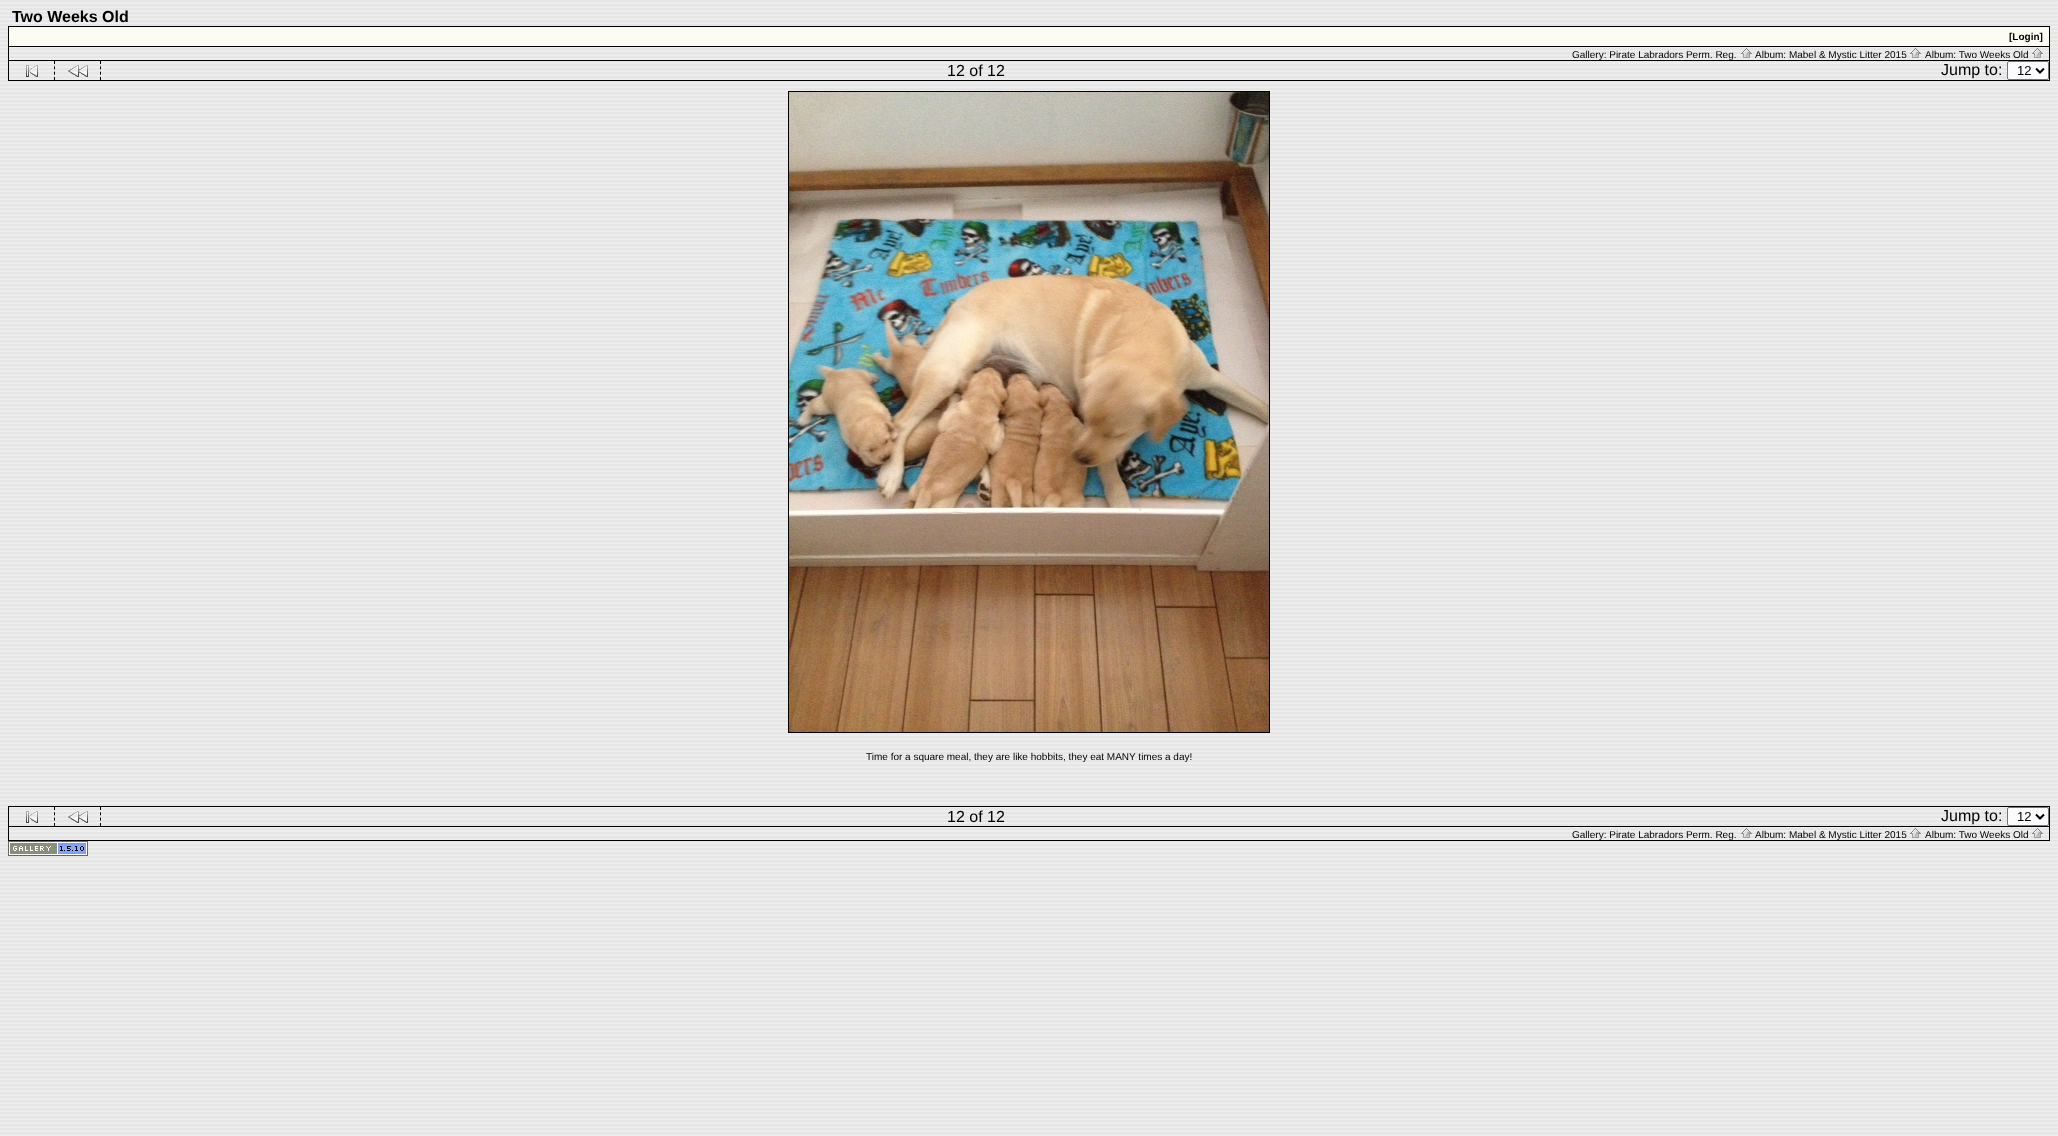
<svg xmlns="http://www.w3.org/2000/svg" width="2058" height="1136">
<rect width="100%" height="100%" fill="#fff"/>
<image x="0" y="0" width="2058" height="1136" href="media/1.png"/>
<text x="12" y="22" style="font-family:Liberation Sans;font-size:16px;font-weight:bold;fill:#000">Two Weeks Old</text>
<rect x="8.5" y="26.5" width="2041" height="20" fill="none" stroke="#000"/>
<rect x="9" y="27" width="2040" height="19" fill="#fcfcf3"/>
<text x="2009" y="40" style="font-family:Liberation Sans;font-size:10px;font-weight:bold;fill:#000">[Login]</text>
<rect x="2049" y="47" width="1" height="34" fill="#000"/>
<rect x="8" y="60" width="2042" height="1" fill="#000"/>
<rect x="8" y="47" width="1" height="14" fill="#000"/>
<text x="1572" y="58" style="font-family:Liberation Sans;font-size:10px;fill:#000">Gallery: Pirate Labradors Perm. Reg.</text>
<image x="1741" y="48" width="11" height="10" href="media/2.png"/>
<text x="1755" y="58" style="font-family:Liberation Sans;font-size:10px;fill:#000">Album: Mabel &amp; Mystic Litter 2015</text>
<image x="1910" y="48" width="11" height="10" href="media/2.png"/>
<text x="1925" y="58" style="font-family:Liberation Sans;font-size:10px;fill:#000">Album: Two Weeks Old</text>
<image x="2032" y="48" width="11" height="10" href="media/2.png"/>
<rect x="8" y="80" width="2042" height="1" fill="#000"/>
<rect x="8" y="61" width="1" height="20" fill="#000"/>
<path d="M54.5 61v19m46-19v19" fill="none" stroke="#000" stroke-dasharray="3 2.33"/>
<image x="26" y="65" width="12" height="12" href="media/3.png"/>
<text x="947" y="76" style="font-family:Liberation Sans;font-size:16px;fill:#000">12 of 12</text>
<text x="1941" y="75" style="font-family:Liberation Sans;font-size:16px;fill:#000">Jump to:</text>
<rect x="2007.5" y="61.5" width="41" height="18" rx="1.5" fill="#fcfcff" stroke="#767676"/>
<path d="M2036 68.5l4 4l4-4" fill="none" stroke="#000" stroke-width="2"/>
<text x="2017" y="75" style="font-family:Liberation Sans;font-size:13px;fill:#000">12</text>
<image x="68" y="65" width="20" height="12" href="media/4.png"/>
<rect x="788.5" y="91.5" width="481" height="641" fill="none" stroke="#000"/>
<image x="789" y="92" width="480" height="640" href="media/5.png"/>
<text x="866" y="760" style="font-family:Liberation Sans;font-size:10px;fill:#000">Time for a square meal, they are like hobbits, they eat MANY times a day!</text>
<rect x="8.5" y="806.5" width="2041" height="20" fill="none" stroke="#000"/>
<path d="M54.5 807v19m46-19v19" fill="none" stroke="#000" stroke-dasharray="3 2.33"/>
<image x="26" y="811" width="12" height="12" href="media/6.png"/>
<text x="947" y="822" style="font-family:Liberation Sans;font-size:16px;fill:#000">12 of 12</text>
<text x="1941" y="821" style="font-family:Liberation Sans;font-size:16px;fill:#000">Jump to:</text>
<rect x="2007.5" y="807.5" width="41" height="18" rx="1.5" fill="#fcfcff" stroke="#767676"/>
<path d="M2036 814.5l4 4l4-4" fill="none" stroke="#000" stroke-width="2"/>
<text x="2017" y="821" style="font-family:Liberation Sans;font-size:13px;fill:#000">12</text>
<image x="68" y="811" width="20" height="12" href="media/7.png"/>
<rect x="2049" y="827" width="1" height="14" fill="#000"/>
<rect x="8" y="840" width="2042" height="1" fill="#000"/>
<rect x="8" y="827" width="1" height="14" fill="#000"/>
<text x="1572" y="838" style="font-family:Liberation Sans;font-size:10px;fill:#000">Gallery: Pirate Labradors Perm. Reg.</text>
<image x="1741" y="828" width="11" height="10" href="media/2.png"/>
<text x="1755" y="838" style="font-family:Liberation Sans;font-size:10px;fill:#000">Album: Mabel &amp; Mystic Litter 2015</text>
<image x="1910" y="828" width="11" height="10" href="media/2.png"/>
<text x="1925" y="838" style="font-family:Liberation Sans;font-size:10px;fill:#000">Album: Two Weeks Old</text>
<image x="2032" y="828" width="11" height="10" href="media/2.png"/>
<image x="8" y="841" width="80" height="15" href="media/8.png"/>
</svg>
